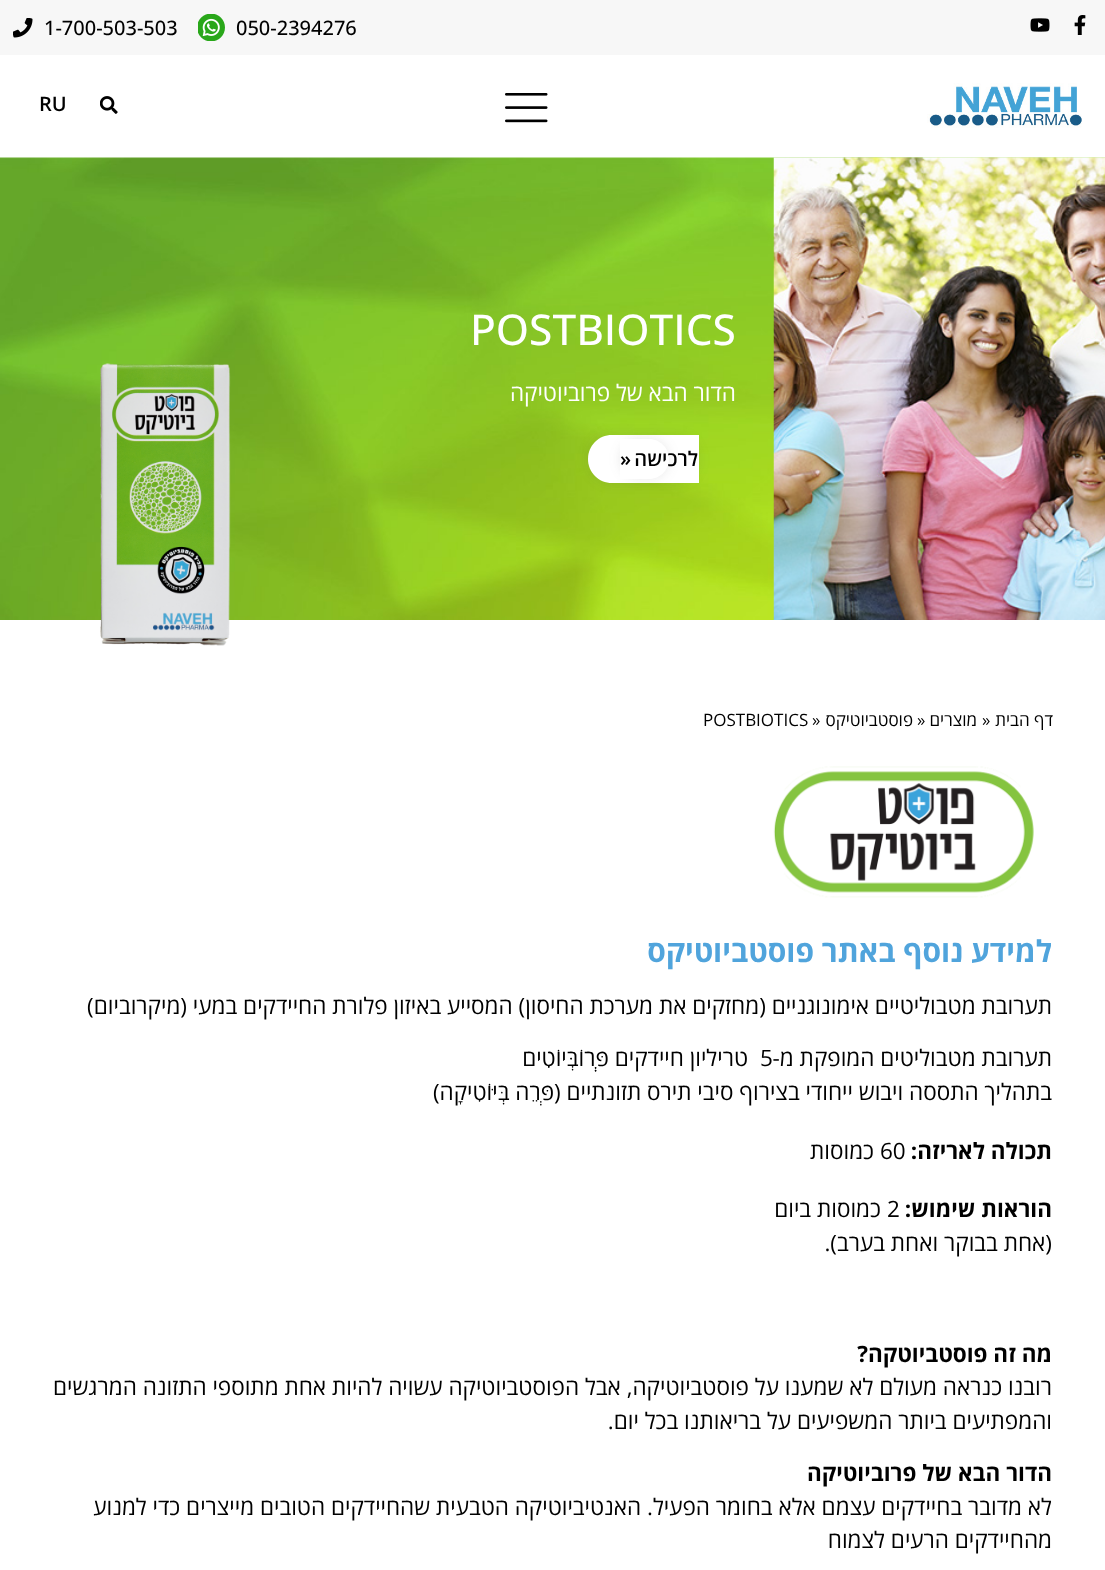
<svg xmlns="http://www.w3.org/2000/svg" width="1105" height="1570">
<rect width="100%" height="100%" fill="#fff"/>
<rect width="1105" height="55" fill="#f7f7f7"/>
<image x="1074" y="15" width="12" height="20" href="media/1.png"/>
<image x="1030" y="18" width="20" height="14" href="media/2.png"/>
<text x="236" y="35" style="font-family:Open Sans;font-size:20px;font-weight:500;fill:#000">050-2394276</text>
<image x="198" y="14" width="27" height="27" href="media/3.png"/>
<text x="44" y="35" style="font-family:Open Sans;font-size:20px;font-weight:500;fill:#000">1-700-503-503</text>
<image x="13" y="18" width="20" height="20" href="media/4.png"/>
<image x="927" y="83" width="155" height="45" href="media/5.png"/>
<image x="505" y="93" width="43" height="30" href="media/6.png"/>
<image x="100" y="96" width="18" height="18" href="media/7.png"/>
<text x="39" y="111" style="font-family:Open Sans;font-size:20px;font-weight:600;fill:#000">RU</text>
<image x="0" y="157" width="1105" height="463" href="media/8.png"/>
<image x="773" y="157" width="332" height="463" href="media/9.png"/>
<text x="470" y="345" style="font-family:Open Sans;font-size:42.5px;font-weight:500;fill:#fff">POSTBIOTICS</text>
<text x="736" y="401" style="font-family:Open Sans;font-size:22.5px;direction:rtl;fill:#fff">הדור הבא של פרוביוטיקה</text>
<rect x="588" y="435" width="111" height="48" rx="24" fill="#5555551f" filter="blur(6px)"/>
<path d="M612 435h87v48h-87c-13.5 0-24-10.5-24-24c0-13.5 10.5-24 24-24z" fill="#fff"/>
<rect x="620" y="439" width="49" height="40" rx="20" fill="#5555551f" filter="blur(6px)"/>
<path d="M620 439h29c11 0 20 9 20 20c0 11-9 20-20 20h-29z" fill="#fff"/>
<text x="698" y="466" style="font-family:Open Sans;font-size:20px;font-weight:600;direction:rtl;fill:#000">לרכישה</text>
<text x="620" y="466" style="font-family:Open Sans;font-size:20px;font-weight:600;fill:#000">»</text>
<image x="100" y="363" width="131" height="283" href="media/10.png"/>
<text x="1053" y="726" style="font-family:Open Sans;font-size:17px;direction:rtl;fill:#000">דף הבית</text>
<text x="982" y="726" style="font-family:Open Sans;font-size:17px;fill:#000">»</text>
<text x="977" y="726" style="font-family:Open Sans;font-size:17px;direction:rtl;fill:#000">מוצרים</text>
<text x="917" y="726" style="font-family:Open Sans;font-size:17px;fill:#000">»</text>
<text x="913" y="726" style="font-family:Open Sans;font-size:17px;direction:rtl;fill:#000">פוסטביוטיקס</text>
<text x="812" y="726" style="font-family:Open Sans;font-size:17px;fill:#000">»</text>
<text x="703" y="726" style="font-family:Open Sans;font-size:17px;fill:#000">POSTBIOTICS</text>
<image x="773" y="766" width="261" height="132" href="media/11.png"/>
<text x="1052" y="962" style="font-family:Open Sans;font-size:30px;font-weight:bold;direction:rtl;fill:#50a4dc">למידע נוסף באתר פוסטביוטיקס</text>
<text x="1052" y="1014" style="font-family:Open Sans;font-size:22.5px;direction:rtl;fill:#000">תערובת מטבוליטיים אימונוגניים (מחזקים את מערכת החיסון) המסייע באיזון פלורת החיידקים במעי (מיקרוביום)</text>
<text x="1052" y="1066" style="font-family:Open Sans;font-size:22.5px;direction:rtl;fill:#000">תערובת מטבוליטים המופקת מ-</text>
<text x="760" y="1066" style="font-family:Open Sans;font-size:22.5px;fill:#000">5</text>
<text x="748" y="1066" style="font-family:Open Sans;font-size:22.5px;direction:rtl;fill:#000">טריליון חיידקים פְְּרוֹבְּּיוֹטִִים</text>
<text x="1052" y="1100" style="font-family:Open Sans;font-size:22.5px;direction:rtl;fill:#000">בתהליך התססה ויבוש ייחודי בצירוף סיבי תירס תזונתיים (פְּרֵה בְּיּוֹטִיקָה)</text>
<text x="1052" y="1159" style="font-family:Open Sans;font-size:22.5px;font-weight:bold;direction:rtl;fill:#000">תכולה לאריזה:</text>
<text x="880" y="1159" style="font-family:Open Sans;font-size:22.5px;fill:#000">60</text>
<text x="874" y="1159" style="font-family:Open Sans;font-size:22.5px;direction:rtl;fill:#000">כמוסות</text>
<text x="1052" y="1217" style="font-family:Open Sans;font-size:22.5px;font-weight:bold;direction:rtl;fill:#000">הוראות שימוש:</text>
<text x="887" y="1217" style="font-family:Open Sans;font-size:22.5px;fill:#000">2</text>
<text x="881" y="1217" style="font-family:Open Sans;font-size:22.5px;direction:rtl;fill:#000">כמוסות ביום</text>
<text x="1052" y="1251" style="font-family:Open Sans;font-size:22.5px;direction:rtl;fill:#000">(אחת בבוקר ואחת בערב).</text>
<text x="1052" y="1362" style="font-family:Open Sans;font-size:22.5px;font-weight:bold;direction:rtl;fill:#000">מה זה פוסטביוטקה?</text>
<text x="1052" y="1395" style="font-family:Open Sans;font-size:22.5px;direction:rtl;fill:#000">רובנו כנראה מעולם לא שמענו על פוסטביוטיקה, אבל הפוסטביוטיקה עשויה להיות אחת מתוספי התזונה המרגשים</text>
<text x="1052" y="1429" style="font-family:Open Sans;font-size:22.5px;direction:rtl;fill:#000">והמפתיעים ביותר המשפיעים על בריאותנו בכל יום.</text>
<text x="1052" y="1481" style="font-family:Open Sans;font-size:22.5px;font-weight:bold;direction:rtl;fill:#000">הדור הבא של פרוביוטיקה</text>
<text x="1052" y="1515" style="font-family:Open Sans;font-size:22.5px;direction:rtl;fill:#000">לא מדובר בחיידקים עצמם אלא בחומר הפעיל. האנטיביוטיקה הטבעית שהחיידקים הטובים מייצרים כדי למנוע</text>
<text x="1052" y="1548" style="font-family:Open Sans;font-size:22.5px;direction:rtl;fill:#000">מהחיידקים הרעים לצמוח</text>
</svg>
